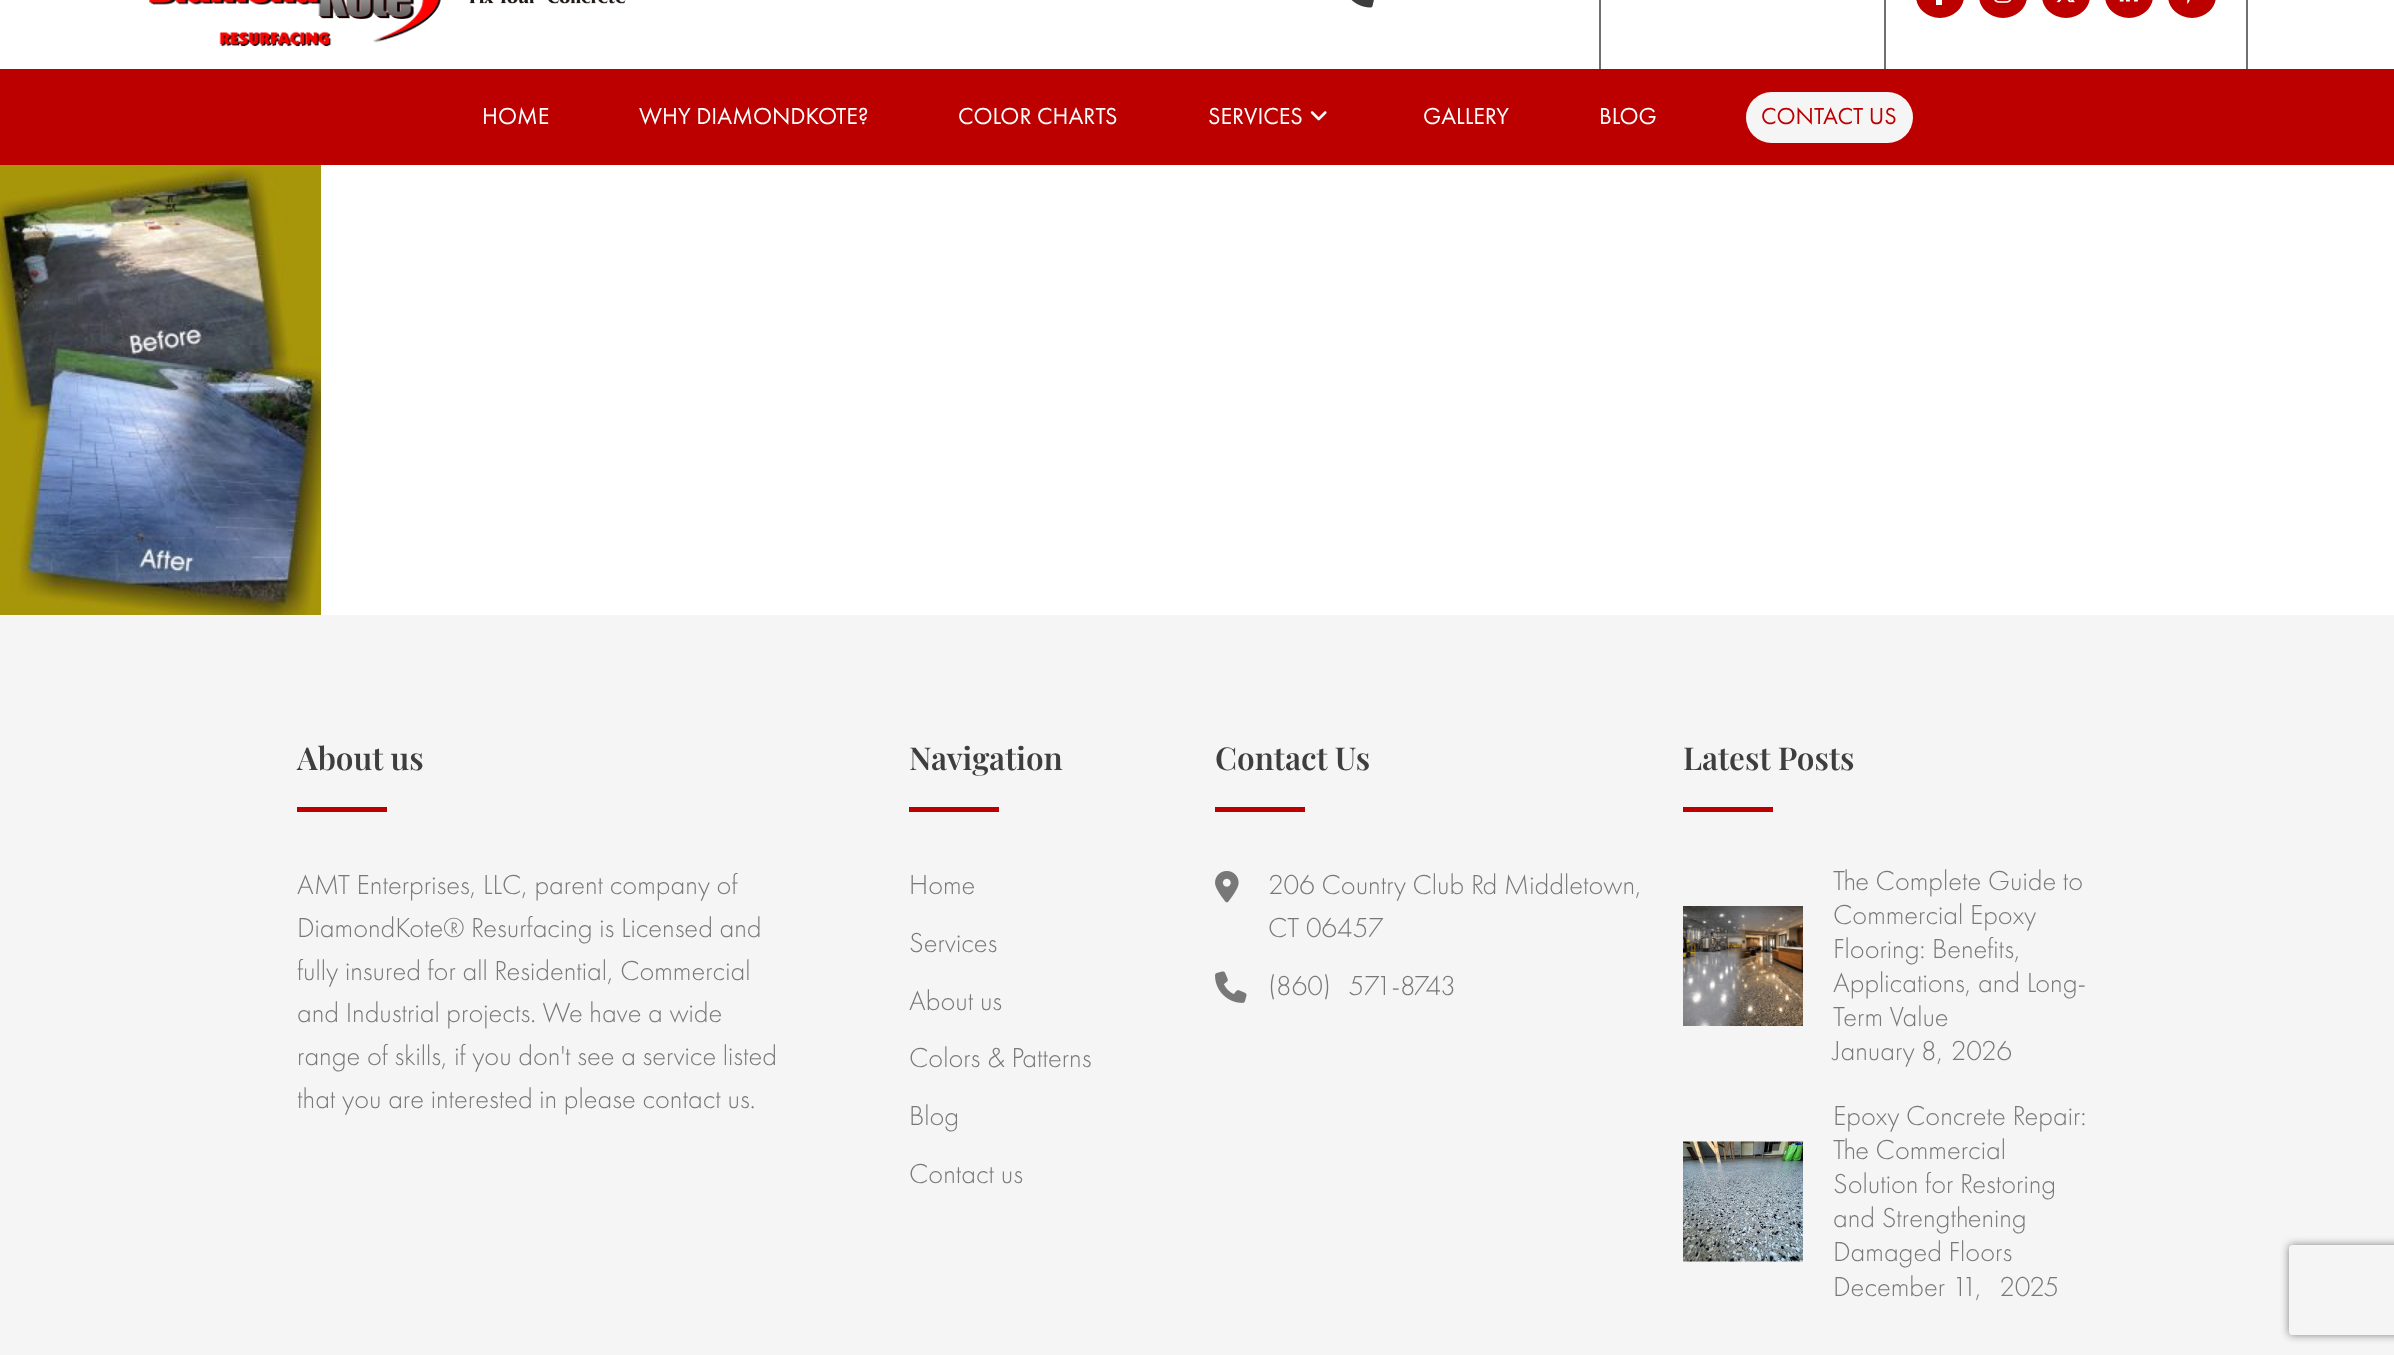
<svg xmlns="http://www.w3.org/2000/svg" width="2394" height="1355">
<defs>
<clipPath id="clip1"><path d="M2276 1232h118v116h-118zm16 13h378c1.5 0 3 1.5 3 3v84c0 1.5-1.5 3-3 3h-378c-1.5 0-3-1.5-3-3v-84c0-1.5 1.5-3 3-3z" clip-rule="evenodd"/></clipPath>
</defs>
<rect width="100%" height="100%" fill="#fff"/>
<image x="149" y="0" width="292" height="47" href="media/1.png"/>
<image x="469" y="0" width="157" height="4" href="media/2.png"/>
<rect x="2246" width="2" height="69" fill="#707070"/>
<rect x="1599" width="2" height="69" fill="#707070"/>
<image x="1351" y="0" width="23" height="8" href="media/3.png"/>
<rect x="1884" width="2" height="69" fill="#707070"/>
<rect x="1917" y="-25" width="46" height="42" rx="23" fill="#bc0000" stroke="#bc0000" stroke-width="2"/>
<rect x="1936" width="6" height="5" fill="#fff"/>
<rect x="1980" y="-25" width="46" height="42" rx="23" fill="#bc0000" stroke="#bc0000" stroke-width="2"/>
<image x="1994" y="0" width="18" height="3" href="media/4.png"/>
<rect x="2043" y="-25" width="46" height="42" rx="23" fill="#bc0000" stroke="#bc0000" stroke-width="2"/>
<image x="2056" y="0" width="19" height="3" href="media/5.png"/>
<rect x="2106" y="-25" width="46" height="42" rx="23" fill="#bc0000" stroke="#bc0000" stroke-width="2"/>
<image x="2119" y="0" width="19" height="2" href="media/6.png"/>
<rect x="2169" y="-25" width="46" height="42" rx="23" fill="#bc0000" stroke="#bc0000" stroke-width="2"/>
<image x="2187" y="0" width="3" height="4" href="media/7.png"/>
<rect y="69" width="2394" height="96" fill="#bc0000"/>
<text x="482" y="124" style="font-family:Futura PT;font-size:24px;fill:#fff">HOME</text>
<text x="639" y="124" style="font-family:Futura PT;font-size:24px;fill:#fff">WHY DIAMONDKOTE?</text>
<text x="958" y="124" style="font-family:Futura PT;font-size:24px;fill:#fff">COLOR CHARTS</text>
<text x="1208" y="124" style="font-family:Futura PT;font-size:24px;fill:#fff">SERVICES</text>
<image x="1310" y="111" width="17" height="10" href="media/8.png"/>
<text x="1423" y="124" style="font-family:Futura PT;font-size:24px;fill:#fff">GALLERY</text>
<text x="1599" y="124" style="font-family:Futura PT;font-size:24px;fill:#fff">BLOG</text>
<rect x="1746" y="92" width="167" height="51" rx="25.5" fill="#f5f5f5"/>
<text x="1761" y="124" style="font-family:Futura PT;font-size:24px;fill:#bc0000">CONTACT US</text>
<image x="0" y="165" width="321" height="450" href="media/9.png"/>
<rect y="615" width="2394" height="740" fill="#f5f5f5"/>
<text x="297" y="770" style="font-family:Playfair Display;font-size:31.5px;font-weight:600;fill:#3e3e3e">About us</text>
<rect x="297" y="807" width="90" height="5" fill="#bc0000"/>
<text x="297" y="894" style="font-family:Futura PT;font-size:28.5px;font-weight:300;fill:#787878">AMT Enterprises, LLC, parent company of</text>
<text x="297" y="937" style="font-family:Futura PT;font-size:28.5px;font-weight:300;fill:#787878">DiamondKote® Resurfacing is Licensed and</text>
<text x="297" y="980" style="font-family:Futura PT;font-size:28.5px;font-weight:300;fill:#787878">fully insured for all Residential, Commercial</text>
<text x="297" y="1022" style="font-family:Futura PT;font-size:28.5px;font-weight:300;fill:#787878">and Industrial projects. We have a wide</text>
<text x="297" y="1065" style="font-family:Futura PT;font-size:28.5px;font-weight:300;fill:#787878">range of skills, if you don't see a service listed</text>
<text x="297" y="1108" style="font-family:Futura PT;font-size:28.5px;font-weight:300;fill:#787878">that you are interested in please contact us.</text>
<text x="909" y="770" style="font-family:Playfair Display;font-size:31.5px;font-weight:600;fill:#3e3e3e">Navigation</text>
<rect x="909" y="807" width="90" height="5" fill="#bc0000"/>
<text x="909" y="894" style="font-family:Futura PT;font-size:28.5px;font-weight:300;fill:#787878">Home</text>
<text x="909" y="952" style="font-family:Futura PT;font-size:28.5px;font-weight:300;fill:#787878">Services</text>
<text x="909" y="1010" style="font-family:Futura PT;font-size:28.5px;font-weight:300;fill:#787878">About us</text>
<text x="909" y="1067" style="font-family:Futura PT;font-size:28.5px;font-weight:300;fill:#787878">Colors &amp; Patterns</text>
<text x="909" y="1125" style="font-family:Futura PT;font-size:28.5px;font-weight:300;fill:#787878">Blog</text>
<text x="909" y="1183" style="font-family:Futura PT;font-size:28.5px;font-weight:300;fill:#787878">Contact us</text>
<text x="1215" y="770" style="font-family:Playfair Display;font-size:31.5px;font-weight:600;fill:#3e3e3e">Contact Us</text>
<rect x="1215" y="807" width="90" height="5" fill="#bc0000"/>
<image x="1215" y="871" width="24" height="32" href="media/10.png"/>
<text x="1268" y="894" style="font-family:Futura PT;font-size:28.5px;font-weight:300;fill:#787878">206 Country Club Rd Middletown,</text>
<text x="1268" y="937" style="font-family:Futura PT;font-size:28.5px;font-weight:300;fill:#787878">CT 06457</text>
<image x="1215" y="971" width="32" height="32" href="media/11.png"/>
<text x="1268" y="995" word-spacing="11" style="font-family:Futura PT;font-size:28.5px;font-weight:300;fill:#787878">(860) 571-8743</text>
<text x="1683" y="770" style="font-family:Playfair Display;font-size:31.5px;font-weight:600;fill:#3e3e3e">Latest Posts</text>
<rect x="1683" y="807" width="90" height="5" fill="#bc0000"/>
<image x="1683" y="906" width="120" height="120" href="media/12.png"/>
<text x="1833" y="890" style="font-family:Futura PT;font-size:28.5px;font-weight:300;fill:#787878">The Complete Guide to</text>
<text x="1833" y="924" style="font-family:Futura PT;font-size:28.5px;font-weight:300;fill:#787878">Commercial Epoxy</text>
<text x="1833" y="958" style="font-family:Futura PT;font-size:28.5px;font-weight:300;fill:#787878">Flooring: Benefits,</text>
<text x="1833" y="992" style="font-family:Futura PT;font-size:28.5px;font-weight:300;fill:#787878">Applications, and Long-</text>
<text x="1833" y="1026" style="font-family:Futura PT;font-size:28.5px;font-weight:300;fill:#787878">Term Value</text>
<text x="1833" y="1060" style="font-family:Futura PT;font-size:28.5px;font-weight:300;fill:#787878">January</text>
<text x="1921" y="1060" word-spacing="1" style="font-family:Futura PT;font-size:28.5px;font-weight:300;fill:#787878">8, 2026</text>
<image x="1683" y="1141" width="120" height="121" href="media/13.png"/>
<text x="1833" y="1125" style="font-family:Futura PT;font-size:28.5px;font-weight:300;fill:#787878">Epoxy Concrete Repair:</text>
<text x="1833" y="1159" style="font-family:Futura PT;font-size:28.5px;font-weight:300;fill:#787878">The Commercial</text>
<text x="1833" y="1193" style="font-family:Futura PT;font-size:28.5px;font-weight:300;fill:#787878">Solution for Restoring</text>
<text x="1833" y="1227" style="font-family:Futura PT;font-size:28.5px;font-weight:300;fill:#787878">and Strengthening</text>
<text x="1833" y="1261" style="font-family:Futura PT;font-size:28.5px;font-weight:300;fill:#787878">Damaged Floors</text>
<text x="1833" y="1296" style="font-family:Futura PT;font-size:28.5px;font-weight:300;fill:#787878">December</text>
<text x="1952" y="1296" word-spacing="11" style="font-family:Futura PT;font-size:28.5px;font-weight:300;fill:#787878">11, 2025</text>
<g clip-path="url(#clip1)">
<rect x="2289" y="1245" width="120" height="90" rx="3" fill="#808080" filter="blur(4px)"/>
</g>
</svg>
